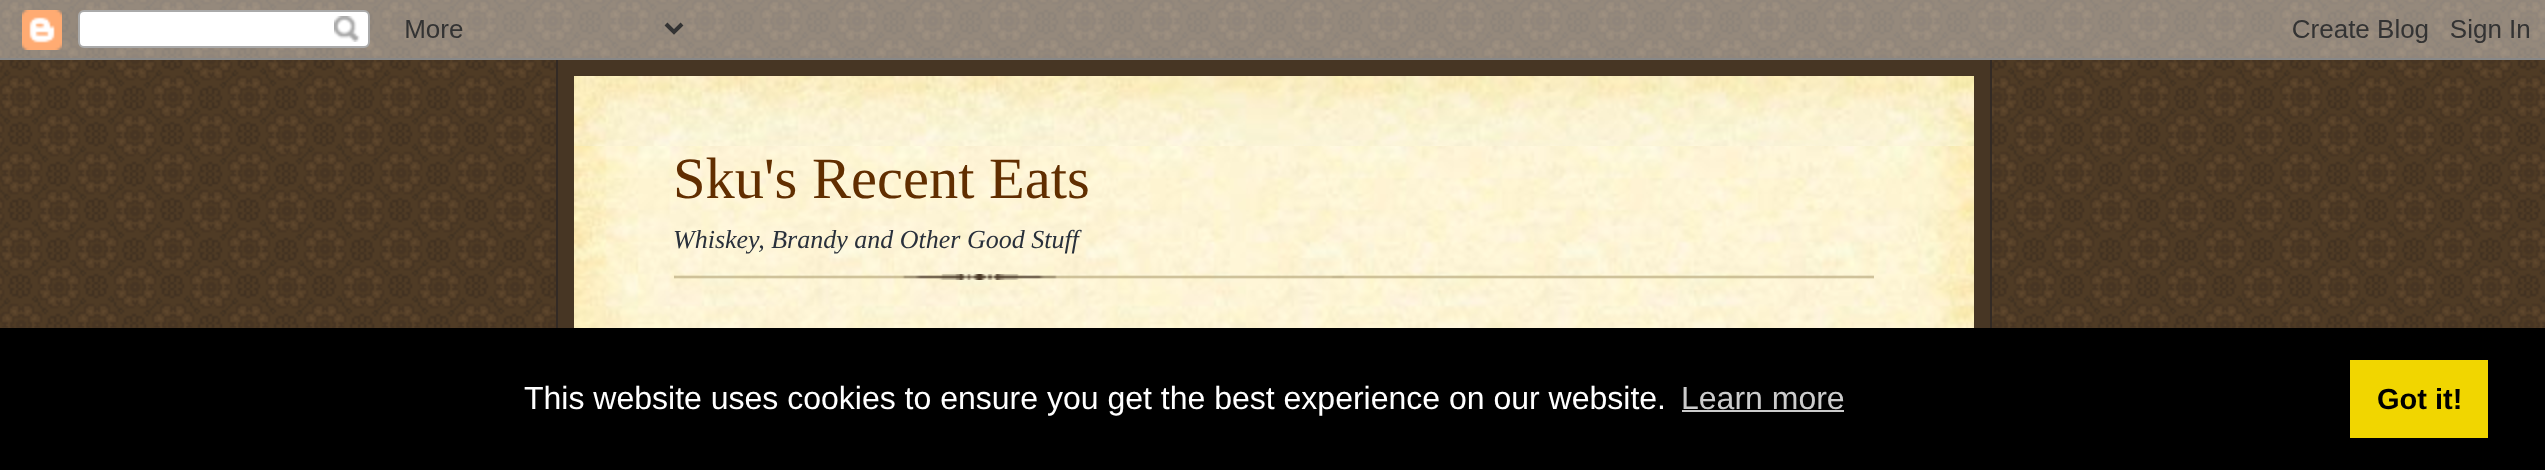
<svg xmlns="http://www.w3.org/2000/svg" width="2545" height="470">
<rect width="100%" height="100%" fill="#fff"/>
<image x="0" y="0" width="2545" height="328" href="media/1.png"/>
<image x="0" y="0" width="2545" height="60" href="media/2.png"/>
<rect x="558" y="60" width="1432" height="268" fill="#473624"/>
<rect x="1990" y="60" width="2" height="268" fill="#332a24"/>
<rect x="556" y="60" width="2" height="268" fill="#332a24"/>
<image x="574" y="76" width="1400" height="70" href="media/3.png"/>
<image x="574" y="146" width="1400" height="182" href="media/4.png"/>
<image x="674" y="274" width="1200" height="6" href="media/5.png"/>
<text x="673" y="198" style="font-family:Liberation Serif;font-size:58.5px;fill:#612e00">Sku's Recent Eats</text>
<text x="673" y="248" style="font-family:Liberation Serif;font-size:26px;font-style:italic;fill:#29303b">Whiskey, Brandy and Other Good Stuff</text>
<rect y="328" width="2545" height="142" fill="#000"/>
<text x="524" y="409" style="font-family:Liberation Sans;font-size:32px;fill:#fff">This website uses cookies to ensure you get the best experience on our website.</text>
<text x="1681" y="409" style="font-family:Liberation Sans;font-size:32px;fill:#ccc">Learn more</text>
<rect x="1682" y="410" width="162" height="2" fill="#ccc"/>
<rect x="2350" y="360" width="138" height="78" fill="#f1d600"/>
<text x="2377" y="409" style="font-family:Liberation Sans;font-size:29px;font-weight:bold;fill:#000">Got it!</text>
</svg>
